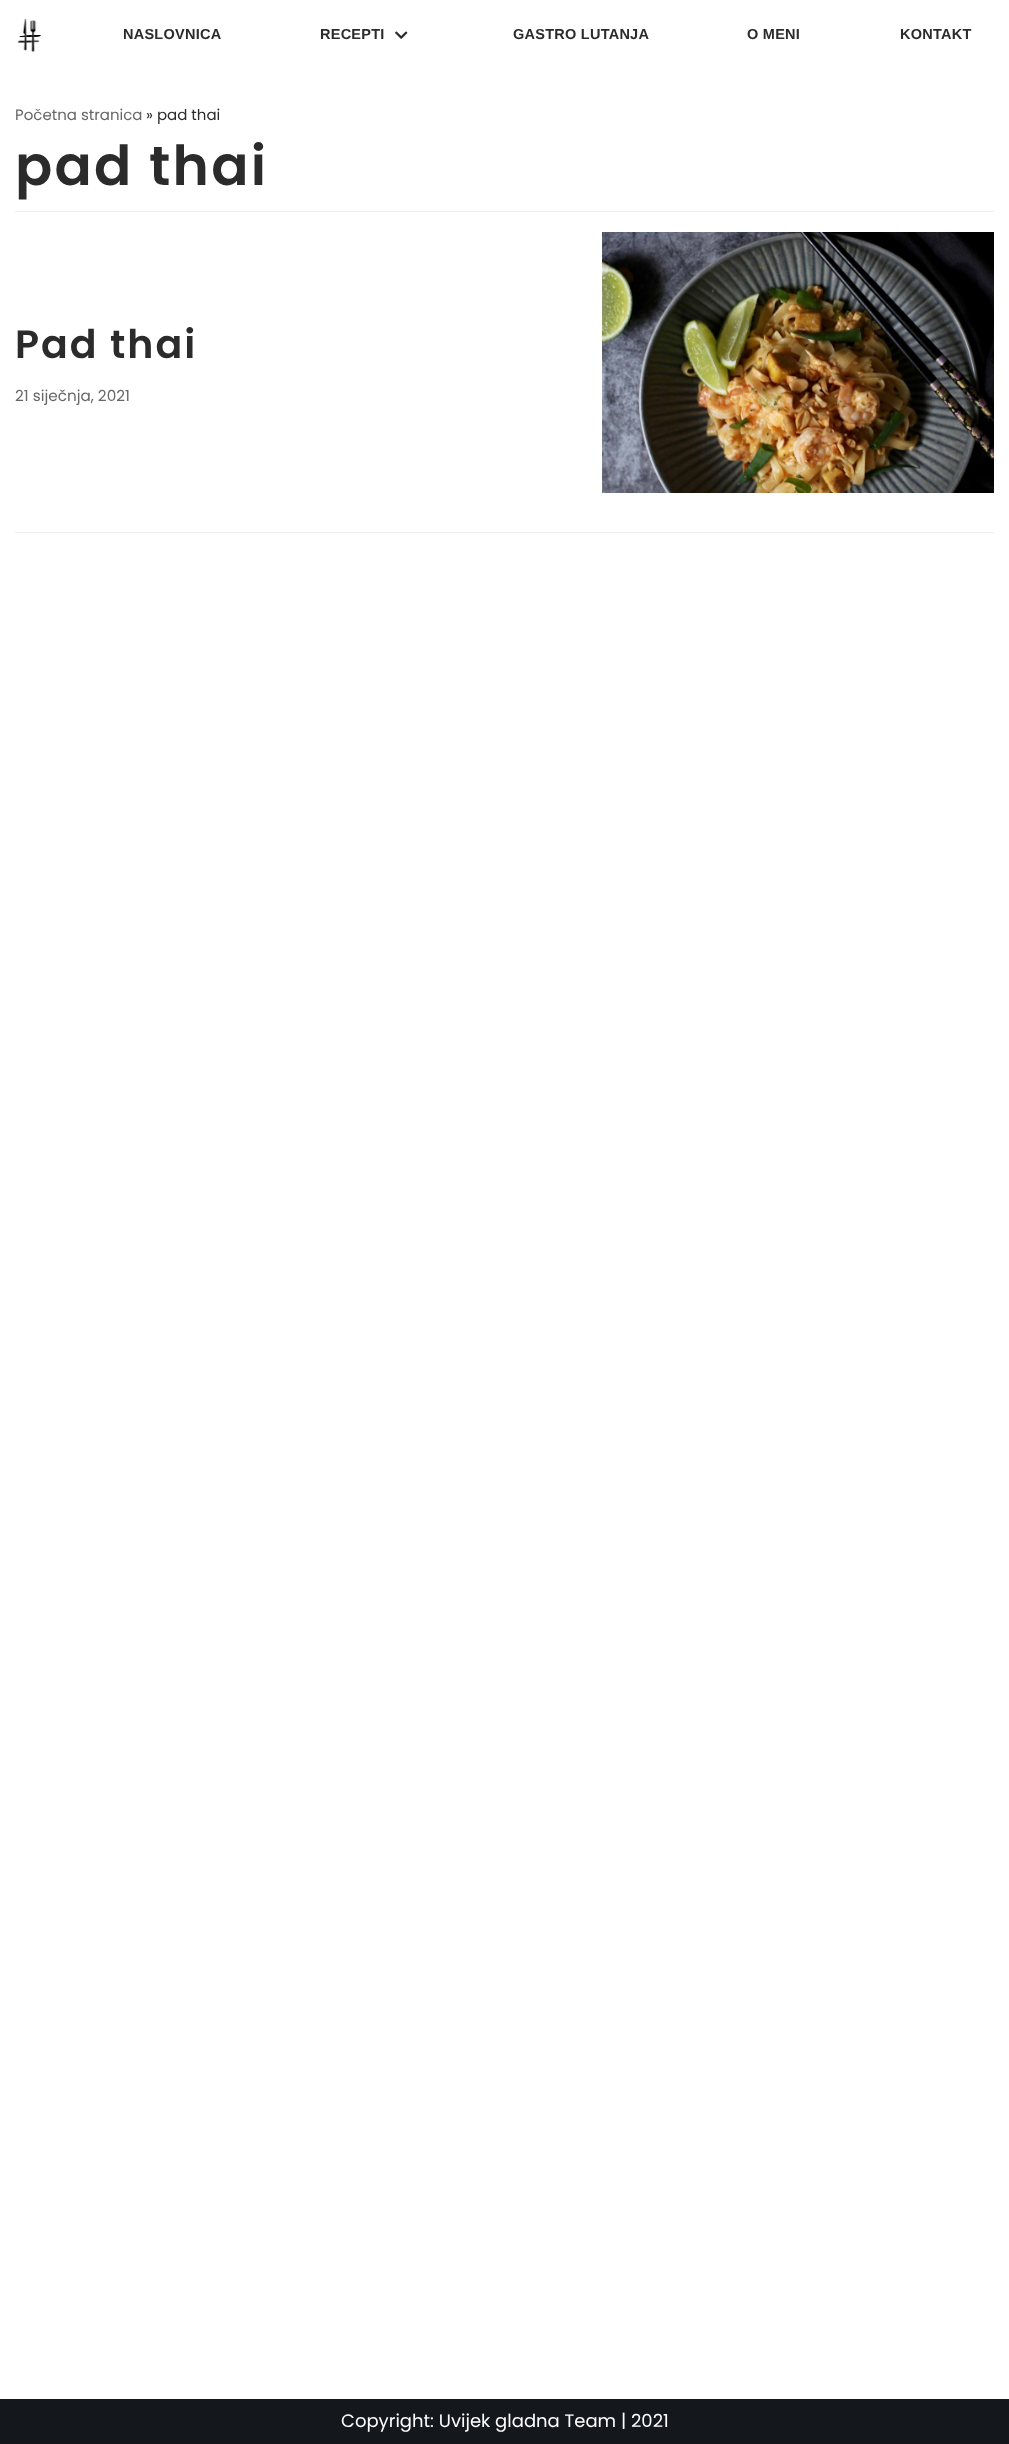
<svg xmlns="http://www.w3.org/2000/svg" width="1009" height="2444">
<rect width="100%" height="100%" fill="#fff"/>
<image x="17" y="19" width="25" height="33" href="media/1.png"/>
<text x="123" y="39" style="font-family:Liberation Sans;font-size:14.5px;font-weight:bold;letter-spacing:0.25px;fill:#2b2b2b">NASLOVNICA</text>
<text x="320" y="39" style="font-family:Liberation Sans;font-size:14.5px;font-weight:bold;letter-spacing:0.25px;fill:#2b2b2b">RECEPTI</text>
<image x="395" y="31" width="13" height="8" href="media/2.png"/>
<text x="513" y="39" style="font-family:Liberation Sans;font-size:14.5px;font-weight:bold;letter-spacing:0.25px;fill:#2b2b2b">GASTRO LUTANJA</text>
<text x="747" y="39" style="font-family:Liberation Sans;font-size:14.5px;font-weight:bold;letter-spacing:0.25px;fill:#2b2b2b">O MENI</text>
<text x="900" y="39" style="font-family:Liberation Sans;font-size:14.5px;font-weight:bold;letter-spacing:0.25px;fill:#2b2b2b">KONTAKT</text>
<rect x="15" y="211" width="979" height="1" fill="#ededed"/>
<text x="15" y="120" style="font-family:Poppins;font-size:15px;fill:#676767">Početna stranica</text>
<text x="146" y="120" style="font-family:Poppins;font-size:15px;fill:#2b2b2b">» pad thai</text>
<text x="15" y="185" style="font-family:Poppins;font-size:55px;font-weight:600;letter-spacing:2.25px;fill:#2b2b2b">pad thai</text>
<rect x="15" y="532" width="979" height="1" fill="#ededed"/>
<text x="15" y="358" style="font-family:Poppins;font-size:39.5px;font-weight:600;letter-spacing:2px;fill:#2b2b2b">Pad thai</text>
<text x="15" y="401" style="font-family:Poppins;font-size:15.25px;fill:#676767">21 siječnja, 2021</text>
<image x="602" y="232" width="392" height="261" href="media/3.png"/>
<rect y="2399" width="1009" height="45" fill="#14171c"/>
<text x="341" y="2427" style="font-family:Poppins;font-size:18px;fill:#fff">Copyright: Uvijek gladna Team | 2021</text>
</svg>
